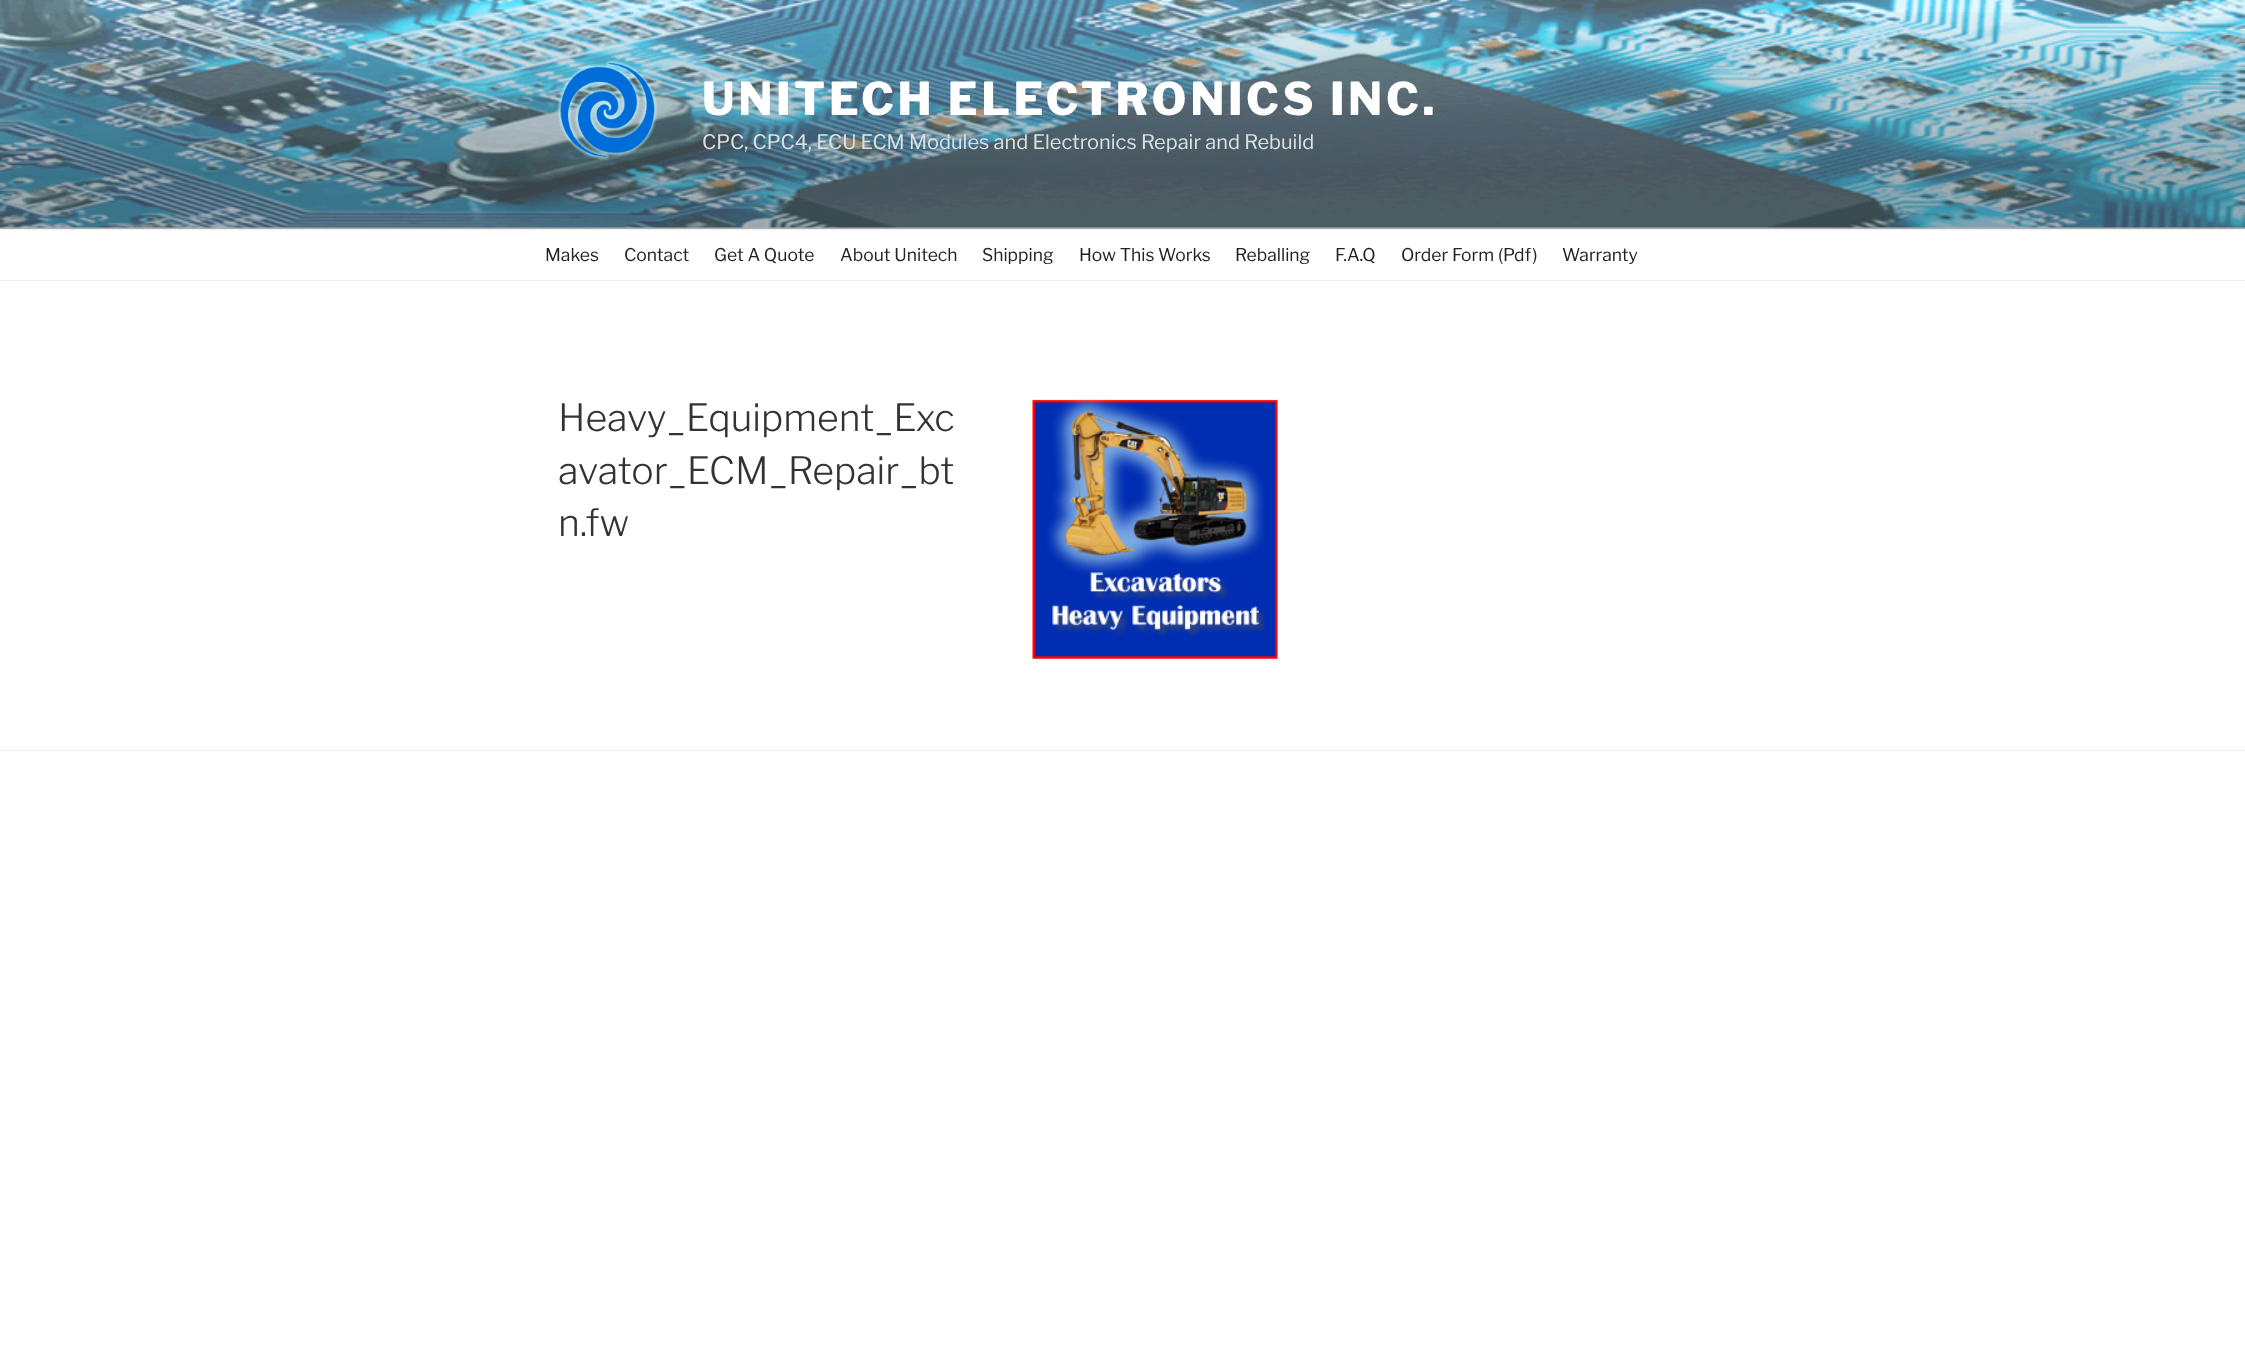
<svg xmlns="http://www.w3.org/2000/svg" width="2245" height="1358">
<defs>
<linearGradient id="g1" gradientUnits="userSpaceOnUse" x1="1123" y1="0" x2="1123" y2="229"><stop offset="0" stop-color="#000" stop-opacity="0"/><stop offset="0.75" stop-color="#000" stop-opacity="0.3"/><stop offset="1" stop-color="#000" stop-opacity="0.3"/></linearGradient>
</defs>
<rect width="100%" height="100%" fill="#fff"/>
<rect y="227" width="2245" height="2" fill="#fafafa"/>
<image x="0" y="0" width="2245" height="228" href="media/1.png"/>
<rect y="12" width="2245" height="217" fill="url(#g1)"/>
<image x="557" y="60" width="101" height="100" href="media/2.png"/>
<text x="702" y="115" style="font-family:'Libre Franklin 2';font-size:45px;font-weight:100;letter-spacing:3.6px;fill:#fff">UNITECH ELECTRONICS INC.</text>
<text x="702" y="149" style="font-family:'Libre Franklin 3';font-size:20px;font-weight:100;fill:#dbe1e3">CPC, CPC4, ECU ECM Modules and Electronics Repair and Rebuild</text>
<rect y="229" width="2245" height="1" fill="#eee"/>
<rect y="280" width="2245" height="1" fill="#eee"/>
<text x="545" y="261" style="font-family:'Libre Franklin 3';font-size:17.5px;font-weight:100;fill:#222">Makes</text>
<text x="624" y="261" style="font-family:'Libre Franklin 3';font-size:17.5px;font-weight:100;fill:#222">Contact</text>
<text x="714" y="261" style="font-family:'Libre Franklin 3';font-size:17.5px;font-weight:100;fill:#222">Get A Quote</text>
<text x="840" y="261" style="font-family:'Libre Franklin 3';font-size:17.5px;font-weight:100;fill:#222">About Unitech</text>
<text x="982" y="261" style="font-family:'Libre Franklin 3';font-size:17.5px;font-weight:100;fill:#222">Shipping</text>
<text x="1079" y="261" style="font-family:'Libre Franklin 3';font-size:17.5px;font-weight:100;fill:#222">How This Works</text>
<text x="1235" y="261" style="font-family:'Libre Franklin 3';font-size:17.5px;font-weight:100;fill:#222">Reballing</text>
<text x="1335" y="261" style="font-family:'Libre Franklin 3';font-size:17.5px;font-weight:100;fill:#222">F.A.Q</text>
<text x="1401" y="261" style="font-family:'Libre Franklin 3';font-size:17.5px;font-weight:100;fill:#222">Order Form (Pdf)</text>
<text x="1562" y="261" style="font-family:'Libre Franklin 3';font-size:17.5px;font-weight:100;fill:#222">Warranty</text>
<text x="558" y="431" style="font-family:Libre Franklin;font-size:37.5px;font-weight:100;fill:#333">Heavy_Equipment_Exc</text>
<text x="558" y="484" style="font-family:Libre Franklin;font-size:37.5px;font-weight:100;fill:#333">avator_ECM_Repair_bt</text>
<text x="558" y="536" style="font-family:Libre Franklin;font-size:37.5px;font-weight:100;fill:#333">n.fw</text>
<image x="1032" y="396" width="246" height="263" href="media/3.png"/>
<rect y="750" width="2245" height="1" fill="#eee"/>
</svg>
